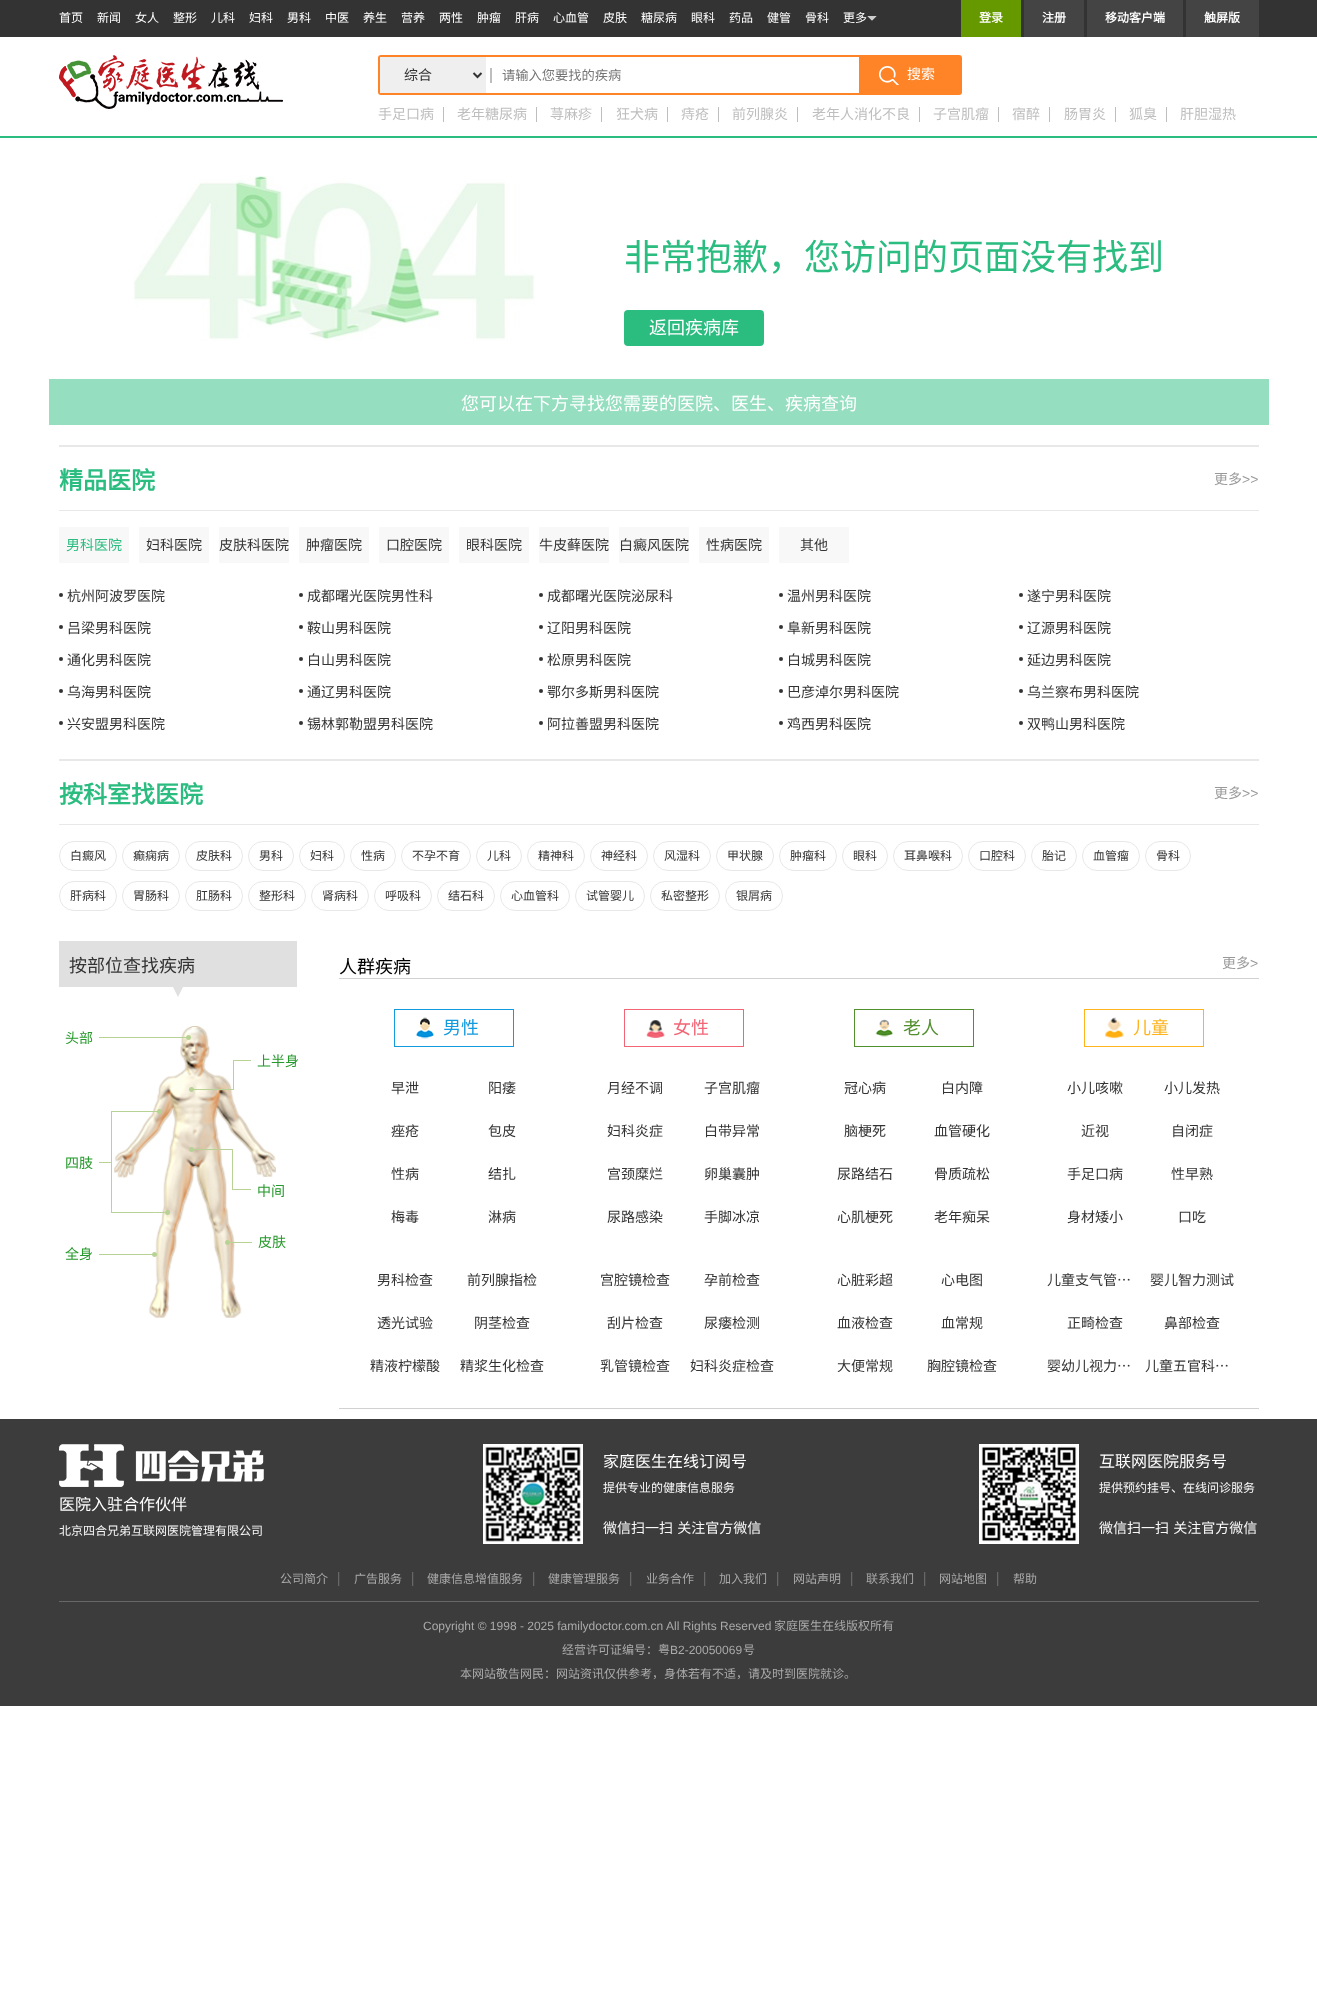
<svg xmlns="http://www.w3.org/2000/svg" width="1317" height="2008">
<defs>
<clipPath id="clip1"><rect x="59" y="1497" width="205" height="40"/></clipPath>
<clipPath id="clip2"><rect x="603" y="1454" width="157" height="81"/></clipPath>
<clipPath id="clip3"><rect x="1099" y="1454" width="158" height="81"/></clipPath>
</defs>
<rect width="100%" height="100%" fill="#fff"/>
<rect width="1317" height="37" fill="#333"/>
<text x="59" y="22" style="font-family:Noto Sans CJK SC;font-size:12px;fill:#fff">首页</text>
<text x="97" y="22" style="font-family:Noto Sans CJK SC;font-size:12px;fill:#fff">新闻</text>
<text x="135" y="22" style="font-family:Noto Sans CJK SC;font-size:12px;fill:#fff">女人</text>
<text x="173" y="22" style="font-family:Noto Sans CJK SC;font-size:12px;fill:#fff">整形</text>
<text x="211" y="22" style="font-family:Noto Sans CJK SC;font-size:12px;fill:#fff">儿科</text>
<text x="249" y="22" style="font-family:Noto Sans CJK SC;font-size:12px;fill:#fff">妇科</text>
<text x="287" y="22" style="font-family:Noto Sans CJK SC;font-size:12px;fill:#fff">男科</text>
<text x="325" y="22" style="font-family:Noto Sans CJK SC;font-size:12px;fill:#fff">中医</text>
<text x="363" y="22" style="font-family:Noto Sans CJK SC;font-size:12px;fill:#fff">养生</text>
<text x="401" y="22" style="font-family:Noto Sans CJK SC;font-size:12px;fill:#fff">营养</text>
<text x="439" y="22" style="font-family:Noto Sans CJK SC;font-size:12px;fill:#fff">两性</text>
<text x="477" y="22" style="font-family:Noto Sans CJK SC;font-size:12px;fill:#fff">肿瘤</text>
<text x="515" y="22" style="font-family:Noto Sans CJK SC;font-size:12px;fill:#fff">肝病</text>
<text x="553" y="22" style="font-family:Noto Sans CJK SC;font-size:12px;fill:#fff">心血管</text>
<text x="603" y="22" style="font-family:Noto Sans CJK SC;font-size:12px;fill:#fff">皮肤</text>
<text x="641" y="22" style="font-family:Noto Sans CJK SC;font-size:12px;fill:#fff">糖尿病</text>
<text x="691" y="22" style="font-family:Noto Sans CJK SC;font-size:12px;fill:#fff">眼科</text>
<text x="729" y="22" style="font-family:Noto Sans CJK SC;font-size:12px;fill:#fff">药品</text>
<text x="767" y="22" style="font-family:Noto Sans CJK SC;font-size:12px;fill:#fff">健管</text>
<text x="805" y="22" style="font-family:Noto Sans CJK SC;font-size:12px;fill:#fff">骨科</text>
<text x="843" y="22" style="font-family:Noto Sans CJK SC;font-size:12px;fill:#fff">更多</text>
<path d="M867 16h10l-5 5z" fill="#ccc"/>
<path d="M877 16v10l-5-5zm-10 10v-10l5 5z" fill="#333"/>
<rect x="961" width="60" height="37" fill="#690"/>
<text x="979" y="22" style="font-family:Noto Sans CJK SC;font-size:12px;font-weight:bold;fill:#fff">登录</text>
<rect x="1024" width="60" height="37" fill="#444"/>
<text x="1042" y="22" style="font-family:Noto Sans CJK SC;font-size:12px;font-weight:bold;fill:#fff">注册</text>
<rect x="1087" width="96" height="37" fill="#444"/>
<text x="1105" y="22" style="font-family:Noto Sans CJK SC;font-size:12px;font-weight:bold;fill:#fff">移动客户端</text>
<rect x="1186" width="73" height="37" fill="#444"/>
<text x="1204" y="22" style="font-family:Noto Sans CJK SC;font-size:12px;font-weight:bold;fill:#fff">触屏版</text>
<image x="59" y="55" width="224" height="54" href="media/1.png"/>
<rect x="379" y="56" width="582" height="38" rx="2" fill="none" stroke="#ff8427" stroke-width="2"/>
<rect x="380" y="57" width="106" height="36" fill="#efefef"/>
<path d="M473.5 73l4 4l4-4" fill="none" stroke="#333" stroke-width="2"/>
<text x="404" y="80" style="font-family:Noto Sans CJK SC;font-size:14px;fill:#333">综合</text>
<rect x="490" y="68" width="2" height="15" fill="#bebebe"/>
<text x="502" y="80" style="font-family:Noto Sans CJK SC;font-size:13.25px;fill:#757575">请输入您要找的疾病</text>
<rect x="859" y="57" width="101" height="36" fill="#ff8427"/>
<image x="879" y="66" width="20" height="19" href="media/2.png"/>
<text x="907" y="79" style="font-family:Noto Sans CJK SC;font-size:14px;fill:#fff">搜索</text>
<text x="378" y="119" style="font-family:Noto Sans CJK SC;font-size:14px;fill:#bebebe">手足口病</text>
<rect x="443" y="107" width="1" height="15" fill="#bebebe"/>
<text x="457" y="119" style="font-family:Noto Sans CJK SC;font-size:14px;fill:#bebebe">老年糖尿病</text>
<rect x="536" y="107" width="1" height="15" fill="#bebebe"/>
<text x="550" y="119" style="font-family:Noto Sans CJK SC;font-size:14px;fill:#bebebe">荨麻疹</text>
<rect x="601" y="107" width="1" height="15" fill="#bebebe"/>
<text x="616" y="119" style="font-family:Noto Sans CJK SC;font-size:14px;fill:#bebebe">狂犬病</text>
<rect x="667" y="107" width="1" height="15" fill="#bebebe"/>
<text x="681" y="119" style="font-family:Noto Sans CJK SC;font-size:14px;fill:#bebebe">痔疮</text>
<rect x="718" y="107" width="1" height="15" fill="#bebebe"/>
<text x="732" y="119" style="font-family:Noto Sans CJK SC;font-size:14px;fill:#bebebe">前列腺炎</text>
<rect x="797" y="107" width="1" height="15" fill="#bebebe"/>
<text x="812" y="119" style="font-family:Noto Sans CJK SC;font-size:14px;fill:#bebebe">老年人消化不良</text>
<rect x="919" y="107" width="1" height="15" fill="#bebebe"/>
<text x="933" y="119" style="font-family:Noto Sans CJK SC;font-size:14px;fill:#bebebe">子宫肌瘤</text>
<rect x="998" y="107" width="1" height="15" fill="#bebebe"/>
<text x="1012" y="119" style="font-family:Noto Sans CJK SC;font-size:14px;fill:#bebebe">宿醉</text>
<rect x="1049" y="107" width="1" height="15" fill="#bebebe"/>
<text x="1064" y="119" style="font-family:Noto Sans CJK SC;font-size:14px;fill:#bebebe">肠胃炎</text>
<rect x="1115" y="107" width="1" height="15" fill="#bebebe"/>
<text x="1129" y="119" style="font-family:Noto Sans CJK SC;font-size:14px;fill:#bebebe">狐臭</text>
<rect x="1166" y="107" width="1" height="15" fill="#bebebe"/>
<text x="1180" y="119" style="font-family:Noto Sans CJK SC;font-size:14px;fill:#bebebe">肝胆湿热</text>
<rect y="136" width="1317" height="2" fill="#2bbc80"/>
<image x="133" y="175" width="402" height="166" href="media/3.png"/>
<text x="624" y="270" style="font-family:Noto Sans CJK SC;font-size:36px;fill:#2bbc80">非常抱歉，您访问的页面没有找到</text>
<rect x="624" y="310" width="140" height="36" rx="4" fill="#2bbc80"/>
<text x="649" y="334" style="font-family:Noto Sans CJK SC;font-size:18px;fill:#fff">返回疾病库</text>
<rect x="49" y="379" width="1220" height="46" fill="#95dec0"/>
<text x="461" y="410" style="font-family:Noto Sans CJK SC;font-size:18px;fill:#fff">您可以在下方寻找您需要的医院、医生、疾病查询</text>
<rect x="59" y="445" width="1200" height="2" fill="#e8e8e8"/>
<rect x="59" y="510" width="1200" height="1" fill="#e8e8e8"/>
<text x="59" y="489" style="font-family:Noto Sans CJK SC;font-size:24px;font-weight:bold;fill:#2bbc80">精品医院</text>
<text x="1214" y="484" style="font-family:Noto Sans CJK SC;font-size:14px;fill:#999">更多</text>
<text x="1242" y="484" style="font-family:Liberation Sans;font-size:14px;fill:#999">&gt;&gt;</text>
<rect x="59" y="527" width="70" height="36" fill="#f8f8f8"/>
<text x="66" y="550" style="font-family:Noto Sans CJK SC;font-size:14px;fill:#2bbc80">男科医院</text>
<rect x="139" y="527" width="70" height="36" fill="#f8f8f8"/>
<text x="146" y="550" style="font-family:Noto Sans CJK SC;font-size:14px;fill:#333">妇科医院</text>
<rect x="219" y="527" width="70" height="36" fill="#f8f8f8"/>
<text x="219" y="550" style="font-family:Noto Sans CJK SC;font-size:14px;fill:#333">皮肤科医院</text>
<rect x="299" y="527" width="70" height="36" fill="#f8f8f8"/>
<text x="306" y="550" style="font-family:Noto Sans CJK SC;font-size:14px;fill:#333">肿瘤医院</text>
<rect x="379" y="527" width="70" height="36" fill="#f8f8f8"/>
<text x="386" y="550" style="font-family:Noto Sans CJK SC;font-size:14px;fill:#333">口腔医院</text>
<rect x="459" y="527" width="70" height="36" fill="#f8f8f8"/>
<text x="466" y="550" style="font-family:Noto Sans CJK SC;font-size:14px;fill:#333">眼科医院</text>
<rect x="539" y="527" width="70" height="36" fill="#f8f8f8"/>
<text x="539" y="550" style="font-family:Noto Sans CJK SC;font-size:14px;fill:#333">牛皮藓医院</text>
<rect x="619" y="527" width="70" height="36" fill="#f8f8f8"/>
<text x="619" y="550" style="font-family:Noto Sans CJK SC;font-size:14px;fill:#333">白癜风医院</text>
<rect x="699" y="527" width="70" height="36" fill="#f8f8f8"/>
<text x="706" y="550" style="font-family:Noto Sans CJK SC;font-size:14px;fill:#333">性病医院</text>
<rect x="779" y="527" width="70" height="36" fill="#f8f8f8"/>
<text x="800" y="550" style="font-family:Noto Sans CJK SC;font-size:14px;fill:#333">其他</text>
<circle cx="61" cy="595" r="2" fill="#333"/>
<text x="67" y="601" style="font-family:Noto Sans CJK SC;font-size:14px;fill:#333">杭州阿波罗医院</text>
<circle cx="301" cy="595" r="2" fill="#333"/>
<text x="307" y="601" style="font-family:Noto Sans CJK SC;font-size:14px;fill:#333">成都曙光医院男性科</text>
<circle cx="541" cy="595" r="2" fill="#333"/>
<text x="547" y="601" style="font-family:Noto Sans CJK SC;font-size:14px;fill:#333">成都曙光医院泌尿科</text>
<circle cx="781" cy="595" r="2" fill="#333"/>
<text x="787" y="601" style="font-family:Noto Sans CJK SC;font-size:14px;fill:#333">温州男科医院</text>
<circle cx="1021" cy="595" r="2" fill="#333"/>
<text x="1027" y="601" style="font-family:Noto Sans CJK SC;font-size:14px;fill:#333">遂宁男科医院</text>
<circle cx="61" cy="627" r="2" fill="#333"/>
<text x="67" y="633" style="font-family:Noto Sans CJK SC;font-size:14px;fill:#333">吕梁男科医院</text>
<circle cx="301" cy="627" r="2" fill="#333"/>
<text x="307" y="633" style="font-family:Noto Sans CJK SC;font-size:14px;fill:#333">鞍山男科医院</text>
<circle cx="541" cy="627" r="2" fill="#333"/>
<text x="547" y="633" style="font-family:Noto Sans CJK SC;font-size:14px;fill:#333">辽阳男科医院</text>
<circle cx="781" cy="627" r="2" fill="#333"/>
<text x="787" y="633" style="font-family:Noto Sans CJK SC;font-size:14px;fill:#333">阜新男科医院</text>
<circle cx="1021" cy="627" r="2" fill="#333"/>
<text x="1027" y="633" style="font-family:Noto Sans CJK SC;font-size:14px;fill:#333">辽源男科医院</text>
<circle cx="61" cy="659" r="2" fill="#333"/>
<text x="67" y="665" style="font-family:Noto Sans CJK SC;font-size:14px;fill:#333">通化男科医院</text>
<circle cx="301" cy="659" r="2" fill="#333"/>
<text x="307" y="665" style="font-family:Noto Sans CJK SC;font-size:14px;fill:#333">白山男科医院</text>
<circle cx="541" cy="659" r="2" fill="#333"/>
<text x="547" y="665" style="font-family:Noto Sans CJK SC;font-size:14px;fill:#333">松原男科医院</text>
<circle cx="781" cy="659" r="2" fill="#333"/>
<text x="787" y="665" style="font-family:Noto Sans CJK SC;font-size:14px;fill:#333">白城男科医院</text>
<circle cx="1021" cy="659" r="2" fill="#333"/>
<text x="1027" y="665" style="font-family:Noto Sans CJK SC;font-size:14px;fill:#333">延边男科医院</text>
<circle cx="61" cy="691" r="2" fill="#333"/>
<text x="67" y="697" style="font-family:Noto Sans CJK SC;font-size:14px;fill:#333">乌海男科医院</text>
<circle cx="301" cy="691" r="2" fill="#333"/>
<text x="307" y="697" style="font-family:Noto Sans CJK SC;font-size:14px;fill:#333">通辽男科医院</text>
<circle cx="541" cy="691" r="2" fill="#333"/>
<text x="547" y="697" style="font-family:Noto Sans CJK SC;font-size:14px;fill:#333">鄂尔多斯男科医院</text>
<circle cx="781" cy="691" r="2" fill="#333"/>
<text x="787" y="697" style="font-family:Noto Sans CJK SC;font-size:14px;fill:#333">巴彦淖尔男科医院</text>
<circle cx="1021" cy="691" r="2" fill="#333"/>
<text x="1027" y="697" style="font-family:Noto Sans CJK SC;font-size:14px;fill:#333">乌兰察布男科医院</text>
<circle cx="61" cy="723" r="2" fill="#333"/>
<text x="67" y="729" style="font-family:Noto Sans CJK SC;font-size:14px;fill:#333">兴安盟男科医院</text>
<circle cx="301" cy="723" r="2" fill="#333"/>
<text x="307" y="729" style="font-family:Noto Sans CJK SC;font-size:14px;fill:#333">锡林郭勒盟男科医院</text>
<circle cx="541" cy="723" r="2" fill="#333"/>
<text x="547" y="729" style="font-family:Noto Sans CJK SC;font-size:14px;fill:#333">阿拉善盟男科医院</text>
<circle cx="781" cy="723" r="2" fill="#333"/>
<text x="787" y="729" style="font-family:Noto Sans CJK SC;font-size:14px;fill:#333">鸡西男科医院</text>
<circle cx="1021" cy="723" r="2" fill="#333"/>
<text x="1027" y="729" style="font-family:Noto Sans CJK SC;font-size:14px;fill:#333">双鸭山男科医院</text>
<rect x="59" y="759" width="1200" height="2" fill="#e8e8e8"/>
<rect x="59" y="824" width="1200" height="1" fill="#e8e8e8"/>
<text x="59" y="803" style="font-family:Noto Sans CJK SC;font-size:24px;font-weight:bold;fill:#2bbc80">按科室找医院</text>
<text x="1214" y="798" style="font-family:Noto Sans CJK SC;font-size:14px;fill:#999">更多</text>
<text x="1242" y="798" style="font-family:Liberation Sans;font-size:14px;fill:#999">&gt;&gt;</text>
<rect x="59.5" y="841.5" width="57" height="29" rx="14.5" fill="none" stroke="#e8e8e8"/>
<text x="70" y="860" style="font-family:Noto Sans CJK SC;font-size:12px;fill:#333">白癜风</text>
<rect x="122.5" y="841.5" width="57" height="29" rx="14.5" fill="none" stroke="#e8e8e8"/>
<text x="133" y="860" style="font-family:Noto Sans CJK SC;font-size:12px;fill:#333">癫痫病</text>
<rect x="185.5" y="841.5" width="57" height="29" rx="14.5" fill="none" stroke="#e8e8e8"/>
<text x="196" y="860" style="font-family:Noto Sans CJK SC;font-size:12px;fill:#333">皮肤科</text>
<rect x="248.5" y="841.5" width="45" height="29" rx="14.5" fill="none" stroke="#e8e8e8"/>
<text x="259" y="860" style="font-family:Noto Sans CJK SC;font-size:12px;fill:#333">男科</text>
<rect x="299.5" y="841.5" width="45" height="29" rx="14.5" fill="none" stroke="#e8e8e8"/>
<text x="310" y="860" style="font-family:Noto Sans CJK SC;font-size:12px;fill:#333">妇科</text>
<rect x="350.5" y="841.5" width="45" height="29" rx="14.5" fill="none" stroke="#e8e8e8"/>
<text x="361" y="860" style="font-family:Noto Sans CJK SC;font-size:12px;fill:#333">性病</text>
<rect x="401.5" y="841.5" width="69" height="29" rx="14.5" fill="none" stroke="#e8e8e8"/>
<text x="412" y="860" style="font-family:Noto Sans CJK SC;font-size:12px;fill:#333">不孕不育</text>
<rect x="476.5" y="841.5" width="45" height="29" rx="14.5" fill="none" stroke="#e8e8e8"/>
<text x="487" y="860" style="font-family:Noto Sans CJK SC;font-size:12px;fill:#333">儿科</text>
<rect x="527.5" y="841.5" width="57" height="29" rx="14.5" fill="none" stroke="#e8e8e8"/>
<text x="538" y="860" style="font-family:Noto Sans CJK SC;font-size:12px;fill:#333">精神科</text>
<rect x="590.5" y="841.5" width="57" height="29" rx="14.5" fill="none" stroke="#e8e8e8"/>
<text x="601" y="860" style="font-family:Noto Sans CJK SC;font-size:12px;fill:#333">神经科</text>
<rect x="653.5" y="841.5" width="57" height="29" rx="14.5" fill="none" stroke="#e8e8e8"/>
<text x="664" y="860" style="font-family:Noto Sans CJK SC;font-size:12px;fill:#333">风湿科</text>
<rect x="716.5" y="841.5" width="57" height="29" rx="14.5" fill="none" stroke="#e8e8e8"/>
<text x="727" y="860" style="font-family:Noto Sans CJK SC;font-size:12px;fill:#333">甲状腺</text>
<rect x="779.5" y="841.5" width="57" height="29" rx="14.5" fill="none" stroke="#e8e8e8"/>
<text x="790" y="860" style="font-family:Noto Sans CJK SC;font-size:12px;fill:#333">肿瘤科</text>
<rect x="842.5" y="841.5" width="45" height="29" rx="14.5" fill="none" stroke="#e8e8e8"/>
<text x="853" y="860" style="font-family:Noto Sans CJK SC;font-size:12px;fill:#333">眼科</text>
<rect x="893.5" y="841.5" width="69" height="29" rx="14.5" fill="none" stroke="#e8e8e8"/>
<text x="904" y="860" style="font-family:Noto Sans CJK SC;font-size:12px;fill:#333">耳鼻喉科</text>
<rect x="968.5" y="841.5" width="57" height="29" rx="14.5" fill="none" stroke="#e8e8e8"/>
<text x="979" y="860" style="font-family:Noto Sans CJK SC;font-size:12px;fill:#333">口腔科</text>
<rect x="1031.5" y="841.5" width="45" height="29" rx="14.5" fill="none" stroke="#e8e8e8"/>
<text x="1042" y="860" style="font-family:Noto Sans CJK SC;font-size:12px;fill:#333">胎记</text>
<rect x="1082.5" y="841.5" width="57" height="29" rx="14.5" fill="none" stroke="#e8e8e8"/>
<text x="1093" y="860" style="font-family:Noto Sans CJK SC;font-size:12px;fill:#333">血管瘤</text>
<rect x="1145.5" y="841.5" width="45" height="29" rx="14.5" fill="none" stroke="#e8e8e8"/>
<text x="1156" y="860" style="font-family:Noto Sans CJK SC;font-size:12px;fill:#333">骨科</text>
<rect x="59.5" y="881.5" width="57" height="29" rx="14.5" fill="none" stroke="#e8e8e8"/>
<text x="70" y="900" style="font-family:Noto Sans CJK SC;font-size:12px;fill:#333">肝病科</text>
<rect x="122.5" y="881.5" width="57" height="29" rx="14.5" fill="none" stroke="#e8e8e8"/>
<text x="133" y="900" style="font-family:Noto Sans CJK SC;font-size:12px;fill:#333">胃肠科</text>
<rect x="185.5" y="881.5" width="57" height="29" rx="14.5" fill="none" stroke="#e8e8e8"/>
<text x="196" y="900" style="font-family:Noto Sans CJK SC;font-size:12px;fill:#333">肛肠科</text>
<rect x="248.5" y="881.5" width="57" height="29" rx="14.5" fill="none" stroke="#e8e8e8"/>
<text x="259" y="900" style="font-family:Noto Sans CJK SC;font-size:12px;fill:#333">整形科</text>
<rect x="311.5" y="881.5" width="57" height="29" rx="14.5" fill="none" stroke="#e8e8e8"/>
<text x="322" y="900" style="font-family:Noto Sans CJK SC;font-size:12px;fill:#333">肾病科</text>
<rect x="374.5" y="881.5" width="57" height="29" rx="14.5" fill="none" stroke="#e8e8e8"/>
<text x="385" y="900" style="font-family:Noto Sans CJK SC;font-size:12px;fill:#333">呼吸科</text>
<rect x="437.5" y="881.5" width="57" height="29" rx="14.5" fill="none" stroke="#e8e8e8"/>
<text x="448" y="900" style="font-family:Noto Sans CJK SC;font-size:12px;fill:#333">结石科</text>
<rect x="500.5" y="881.5" width="69" height="29" rx="14.5" fill="none" stroke="#e8e8e8"/>
<text x="511" y="900" style="font-family:Noto Sans CJK SC;font-size:12px;fill:#333">心血管科</text>
<rect x="575.5" y="881.5" width="69" height="29" rx="14.5" fill="none" stroke="#e8e8e8"/>
<text x="586" y="900" style="font-family:Noto Sans CJK SC;font-size:12px;fill:#333">试管婴儿</text>
<rect x="650.5" y="881.5" width="69" height="29" rx="14.5" fill="none" stroke="#e8e8e8"/>
<text x="661" y="900" style="font-family:Noto Sans CJK SC;font-size:12px;fill:#333">私密整形</text>
<rect x="725.5" y="881.5" width="57" height="29" rx="14.5" fill="none" stroke="#e8e8e8"/>
<text x="736" y="900" style="font-family:Noto Sans CJK SC;font-size:12px;fill:#333">银屑病</text>
<image x="99" y="1026" width="177" height="292" href="media/4.png"/>
<text x="65" y="1043" style="font-family:Noto Sans CJK SC;font-size:14px;fill:#26992c">头部</text>
<rect x="251.5" y="1047.5" width="53" height="25" fill="none" stroke="#fff"/>
<text x="257" y="1066" style="font-family:Noto Sans CJK SC;font-size:14px;fill:#26992c">上半身</text>
<text x="65" y="1168" style="font-family:Noto Sans CJK SC;font-size:14px;fill:#26992c">四肢</text>
<rect x="251.5" y="1177.5" width="39" height="25" fill="none" stroke="#fff"/>
<text x="257" y="1196" style="font-family:Noto Sans CJK SC;font-size:14px;fill:#26992c">中间</text>
<text x="258" y="1247" style="font-family:Noto Sans CJK SC;font-size:14px;fill:#26992c">皮肤</text>
<text x="65" y="1259" style="font-family:Noto Sans CJK SC;font-size:14px;fill:#26992c">全身</text>
<rect x="339" y="978" width="920" height="1" fill="#d1d1d1"/>
<text x="339" y="973" style="font-family:Noto Sans CJK SC;font-size:18px;fill:#000">人群疾病</text>
<text x="1222" y="968" style="font-family:Noto Sans CJK SC;font-size:14px;fill:#999">更多</text>
<text x="1250" y="968" style="font-family:Liberation Sans;font-size:14px;fill:#999">&gt;</text>
<rect x="339" y="1408" width="920" height="1" fill="#d1d1d1"/>
<image x="416" y="1017" width="18" height="22" href="media/5.png"/>
<rect x="394.5" y="1009.5" width="119" height="37" fill="none" stroke="#129bdf"/>
<text x="443" y="1034" style="font-family:Noto Sans CJK SC;font-size:18px;fill:#129bdf">男性</text>
<text x="391" y="1093" style="font-family:Noto Sans CJK SC;font-size:14px;fill:#333">早泄</text>
<text x="488" y="1093" style="font-family:Noto Sans CJK SC;font-size:14px;fill:#333">阳痿</text>
<text x="391" y="1136" style="font-family:Noto Sans CJK SC;font-size:14px;fill:#333">痤疮</text>
<text x="488" y="1136" style="font-family:Noto Sans CJK SC;font-size:14px;fill:#333">包皮</text>
<text x="391" y="1179" style="font-family:Noto Sans CJK SC;font-size:14px;fill:#333">性病</text>
<text x="488" y="1179" style="font-family:Noto Sans CJK SC;font-size:14px;fill:#333">结扎</text>
<text x="391" y="1222" style="font-family:Noto Sans CJK SC;font-size:14px;fill:#333">梅毒</text>
<text x="488" y="1222" style="font-family:Noto Sans CJK SC;font-size:14px;fill:#333">淋病</text>
<text x="377" y="1285" style="font-family:Noto Sans CJK SC;font-size:14px;fill:#333">男科检查</text>
<text x="467" y="1285" style="font-family:Noto Sans CJK SC;font-size:14px;fill:#333">前列腺指检</text>
<text x="377" y="1328" style="font-family:Noto Sans CJK SC;font-size:14px;fill:#333">透光试验</text>
<text x="474" y="1328" style="font-family:Noto Sans CJK SC;font-size:14px;fill:#333">阴茎检查</text>
<text x="370" y="1371" style="font-family:Noto Sans CJK SC;font-size:14px;fill:#333">精液柠檬酸</text>
<text x="460" y="1371" style="font-family:Noto Sans CJK SC;font-size:14px;fill:#333">精浆生化检查</text>
<image x="646" y="1020" width="19" height="18" href="media/6.png"/>
<rect x="624.5" y="1009.5" width="119" height="37" fill="none" stroke="#f16575"/>
<text x="673" y="1034" style="font-family:Noto Sans CJK SC;font-size:18px;fill:#f16575">女性</text>
<text x="607" y="1093" style="font-family:Noto Sans CJK SC;font-size:14px;fill:#333">月经不调</text>
<text x="704" y="1093" style="font-family:Noto Sans CJK SC;font-size:14px;fill:#333">子宫肌瘤</text>
<text x="607" y="1136" style="font-family:Noto Sans CJK SC;font-size:14px;fill:#333">妇科炎症</text>
<text x="704" y="1136" style="font-family:Noto Sans CJK SC;font-size:14px;fill:#333">白带异常</text>
<text x="607" y="1179" style="font-family:Noto Sans CJK SC;font-size:14px;fill:#333">宫颈糜烂</text>
<text x="704" y="1179" style="font-family:Noto Sans CJK SC;font-size:14px;fill:#333">卵巢囊肿</text>
<text x="607" y="1222" style="font-family:Noto Sans CJK SC;font-size:14px;fill:#333">尿路感染</text>
<text x="704" y="1222" style="font-family:Noto Sans CJK SC;font-size:14px;fill:#333">手脚冰凉</text>
<text x="600" y="1285" style="font-family:Noto Sans CJK SC;font-size:14px;fill:#333">宫腔镜检查</text>
<text x="704" y="1285" style="font-family:Noto Sans CJK SC;font-size:14px;fill:#333">孕前检查</text>
<text x="607" y="1328" style="font-family:Noto Sans CJK SC;font-size:14px;fill:#333">刮片检查</text>
<text x="704" y="1328" style="font-family:Noto Sans CJK SC;font-size:14px;fill:#333">尿瘘检测</text>
<text x="600" y="1371" style="font-family:Noto Sans CJK SC;font-size:14px;fill:#333">乳管镜检查</text>
<text x="690" y="1371" style="font-family:Noto Sans CJK SC;font-size:14px;fill:#333">妇科炎症检查</text>
<image x="875" y="1019" width="18" height="18" href="media/7.png"/>
<rect x="854.5" y="1009.5" width="119" height="37" fill="none" stroke="#52902e"/>
<text x="903" y="1034" style="font-family:Noto Sans CJK SC;font-size:18px;fill:#52902e">老人</text>
<text x="844" y="1093" style="font-family:Noto Sans CJK SC;font-size:14px;fill:#333">冠心病</text>
<text x="941" y="1093" style="font-family:Noto Sans CJK SC;font-size:14px;fill:#333">白内障</text>
<text x="844" y="1136" style="font-family:Noto Sans CJK SC;font-size:14px;fill:#333">脑梗死</text>
<text x="934" y="1136" style="font-family:Noto Sans CJK SC;font-size:14px;fill:#333">血管硬化</text>
<text x="837" y="1179" style="font-family:Noto Sans CJK SC;font-size:14px;fill:#333">尿路结石</text>
<text x="934" y="1179" style="font-family:Noto Sans CJK SC;font-size:14px;fill:#333">骨质疏松</text>
<text x="837" y="1222" style="font-family:Noto Sans CJK SC;font-size:14px;fill:#333">心肌梗死</text>
<text x="934" y="1222" style="font-family:Noto Sans CJK SC;font-size:14px;fill:#333">老年痴呆</text>
<text x="837" y="1285" style="font-family:Noto Sans CJK SC;font-size:14px;fill:#333">心脏彩超</text>
<text x="941" y="1285" style="font-family:Noto Sans CJK SC;font-size:14px;fill:#333">心电图</text>
<text x="837" y="1328" style="font-family:Noto Sans CJK SC;font-size:14px;fill:#333">血液检查</text>
<text x="941" y="1328" style="font-family:Noto Sans CJK SC;font-size:14px;fill:#333">血常规</text>
<text x="837" y="1371" style="font-family:Noto Sans CJK SC;font-size:14px;fill:#333">大便常规</text>
<text x="927" y="1371" style="font-family:Noto Sans CJK SC;font-size:14px;fill:#333">胸腔镜检查</text>
<image x="1105" y="1017" width="19" height="22" href="media/8.png"/>
<rect x="1084.5" y="1009.5" width="119" height="37" fill="none" stroke="#ffb31d"/>
<text x="1133" y="1034" style="font-family:Noto Sans CJK SC;font-size:18px;fill:#ffb31d">儿童</text>
<text x="1067" y="1093" style="font-family:Noto Sans CJK SC;font-size:14px;fill:#333">小儿咳嗽</text>
<text x="1164" y="1093" style="font-family:Noto Sans CJK SC;font-size:14px;fill:#333">小儿发热</text>
<text x="1081" y="1136" style="font-family:Noto Sans CJK SC;font-size:14px;fill:#333">近视</text>
<text x="1171" y="1136" style="font-family:Noto Sans CJK SC;font-size:14px;fill:#333">自闭症</text>
<text x="1067" y="1179" style="font-family:Noto Sans CJK SC;font-size:14px;fill:#333">手足口病</text>
<text x="1171" y="1179" style="font-family:Noto Sans CJK SC;font-size:14px;fill:#333">性早熟</text>
<text x="1067" y="1222" style="font-family:Noto Sans CJK SC;font-size:14px;fill:#333">身材矮小</text>
<text x="1178" y="1222" style="font-family:Noto Sans CJK SC;font-size:14px;fill:#333">口吃</text>
<text x="1047" y="1285" style="font-family:Noto Sans CJK SC;font-size:14px;fill:#333">儿童支气管…</text>
<text x="1150" y="1285" style="font-family:Noto Sans CJK SC;font-size:14px;fill:#333">婴儿智力测试</text>
<text x="1067" y="1328" style="font-family:Noto Sans CJK SC;font-size:14px;fill:#333">正畸检查</text>
<text x="1164" y="1328" style="font-family:Noto Sans CJK SC;font-size:14px;fill:#333">鼻部检查</text>
<text x="1047" y="1371" style="font-family:Noto Sans CJK SC;font-size:14px;fill:#333">婴幼儿视力…</text>
<text x="1145" y="1371" style="font-family:Noto Sans CJK SC;font-size:14px;fill:#333">儿童五官科…</text>
<rect x="59" y="941" width="238" height="46" fill="#e0e0e0"/>
<text x="69" y="972" style="font-family:Noto Sans CJK SC;font-size:18px;fill:#333">按部位查找疾病</text>
<path d="M173 987h10l-5 10z" fill="#e0e0e0"/>
<rect y="1419" width="1317" height="287" fill="#3c3c3c"/>
<image x="59" y="1444" width="205" height="43" href="media/9.png"/>
<g clip-path="url(#clip1)">
<text x="59" y="1510" style="font-family:Noto Sans CJK SC;font-size:16px;fill:#fff">医院入驻合作伙伴</text>
</g>
<text x="59" y="1535" style="font-family:Noto Sans CJK SC;font-size:12px;fill:#f9f9f9">北京四合兄弟互联网医院管理有限公司</text>
<image x="483" y="1444" width="100" height="100" href="media/10.png"/>
<g clip-path="url(#clip2)">
<text x="603" y="1467" style="font-family:Noto Sans CJK SC;font-size:16px;fill:#fff">家庭医生在线订阅号</text>
</g>
<text x="603" y="1492" style="font-family:Noto Sans CJK SC;font-size:12px;fill:#f9f9f9">提供专业的健康信息服务</text>
<text x="603" y="1533" word-spacing="1" style="font-family:Noto Sans CJK SC;font-size:14px;fill:#f9f9f9">微信扫一扫 关注官方微信</text>
<image x="979" y="1444" width="100" height="100" href="media/11.png"/>
<g clip-path="url(#clip3)">
<text x="1099" y="1467" style="font-family:Noto Sans CJK SC;font-size:16px;fill:#fff">互联网医院服务号</text>
</g>
<text x="1099" y="1492" style="font-family:Noto Sans CJK SC;font-size:12px;fill:#f9f9f9">提供预约挂号、在线问诊服务</text>
<text x="1099" y="1533" word-spacing="1" style="font-family:Noto Sans CJK SC;font-size:14px;fill:#f9f9f9">微信扫一扫 关注官方微信</text>
<rect x="59" y="1601" width="1200" height="1" fill="#676767"/>
<text x="280" y="1583" style="font-family:Noto Sans CJK SC;font-size:12px;fill:#aaa">公司简介</text>
<rect x="338" y="1572" width="1" height="14" fill="#676767"/>
<rect x="339" y="1572" width="1" height="14" fill="#474747"/>
<text x="354" y="1583" style="font-family:Noto Sans CJK SC;font-size:12px;fill:#aaa">广告服务</text>
<rect x="412" y="1572" width="1" height="14" fill="#676767"/>
<rect x="413" y="1572" width="1" height="14" fill="#474747"/>
<text x="427" y="1583" style="font-family:Noto Sans CJK SC;font-size:12px;fill:#aaa">健康信息增值服务</text>
<rect x="533" y="1572" width="1" height="14" fill="#676767"/>
<rect x="534" y="1572" width="1" height="14" fill="#474747"/>
<text x="548" y="1583" style="font-family:Noto Sans CJK SC;font-size:12px;fill:#aaa">健康管理服务</text>
<rect x="630" y="1572" width="1" height="14" fill="#676767"/>
<rect x="631" y="1572" width="1" height="14" fill="#474747"/>
<text x="646" y="1583" style="font-family:Noto Sans CJK SC;font-size:12px;fill:#aaa">业务合作</text>
<rect x="704" y="1572" width="1" height="14" fill="#676767"/>
<rect x="705" y="1572" width="1" height="14" fill="#474747"/>
<text x="719" y="1583" style="font-family:Noto Sans CJK SC;font-size:12px;fill:#aaa">加入我们</text>
<rect x="777" y="1572" width="1" height="14" fill="#676767"/>
<rect x="778" y="1572" width="1" height="14" fill="#474747"/>
<text x="793" y="1583" style="font-family:Noto Sans CJK SC;font-size:12px;fill:#aaa">网站声明</text>
<rect x="851" y="1572" width="1" height="14" fill="#676767"/>
<rect x="852" y="1572" width="1" height="14" fill="#474747"/>
<text x="866" y="1583" style="font-family:Noto Sans CJK SC;font-size:12px;fill:#aaa">联系我们</text>
<rect x="924" y="1572" width="1" height="14" fill="#676767"/>
<rect x="925" y="1572" width="1" height="14" fill="#474747"/>
<text x="939" y="1583" style="font-family:Noto Sans CJK SC;font-size:12px;fill:#aaa">网站地图</text>
<rect x="997" y="1572" width="1" height="14" fill="#676767"/>
<rect x="998" y="1572" width="1" height="14" fill="#474747"/>
<text x="1013" y="1583" style="font-family:Noto Sans CJK SC;font-size:12px;fill:#aaa">帮助</text>
<text x="423" y="1630" style="font-family:Liberation Sans;font-size:12px;fill:#aaa">Copyright © 1998 - 2025 familydoctor.com.cn All Rights Reserved</text>
<text x="774" y="1630" style="font-family:Noto Sans CJK SC;font-size:12px;fill:#aaa">家庭医生在线版权所有</text>
<text x="562" y="1654" style="font-family:Noto Sans CJK SC;font-size:12px;fill:#aaa">经营许可证编号：粤</text>
<text x="670" y="1654" style="font-family:Liberation Sans;font-size:12px;fill:#aaa">B2-20050069</text>
<text x="743" y="1654" style="font-family:Noto Sans CJK SC;font-size:12px;fill:#aaa">号</text>
<text x="460" y="1678" style="font-family:Noto Sans CJK SC;font-size:12px;fill:#aaa">本网站敬告网民：网站资讯仅供参考，身体若有不适，请及时到医院就诊。</text>
</svg>
